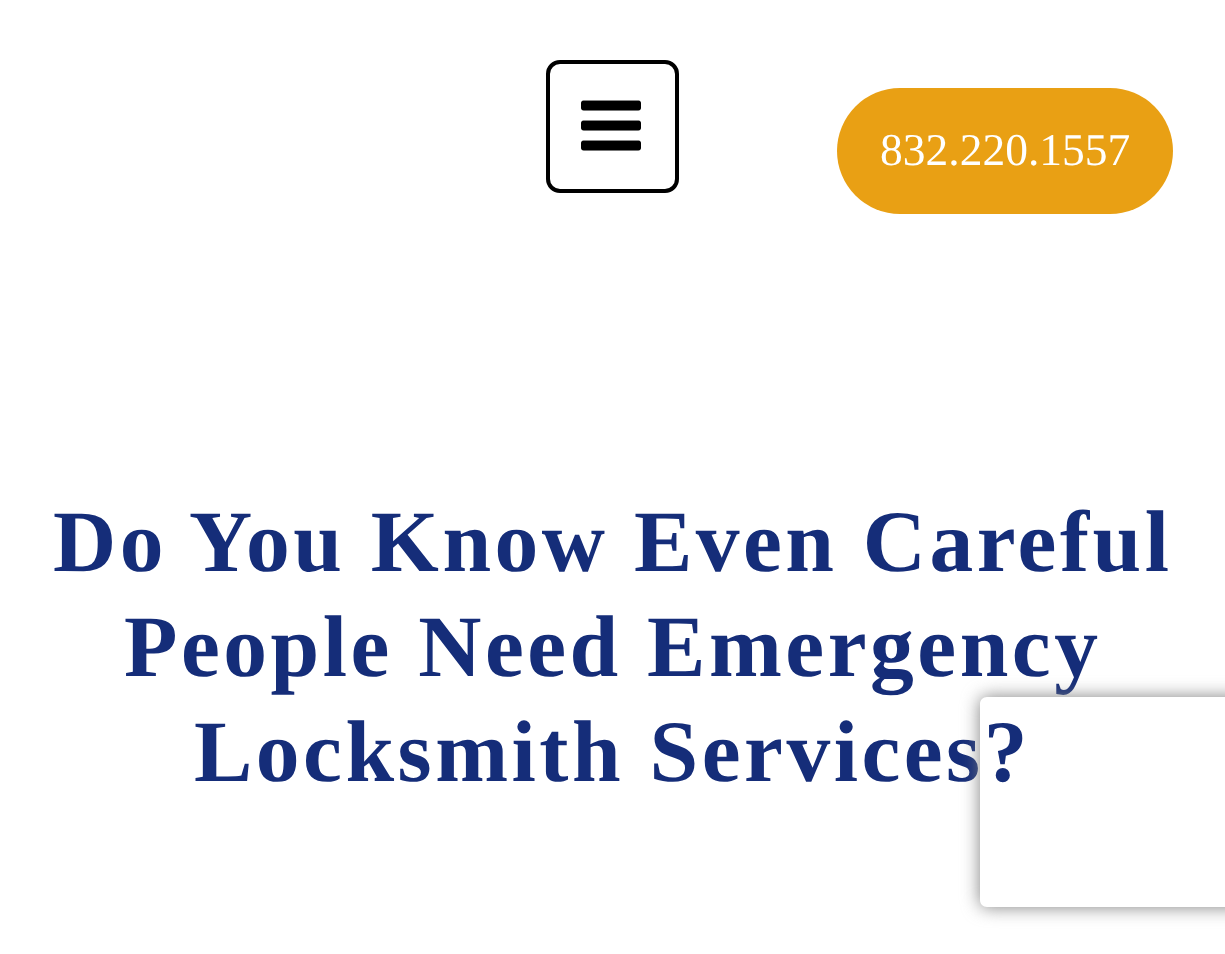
<svg xmlns="http://www.w3.org/2000/svg" width="1225" height="954">
<defs>
<clipPath id="clip1"><path d="M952 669h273v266h-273zm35 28h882c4 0 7 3 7 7v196c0 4-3 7-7 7h-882c-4 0-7-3-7-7v-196c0-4 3-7 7-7z" clip-rule="evenodd"/></clipPath>
</defs>
<rect width="100%" height="100%" fill="#fff"/>
<rect x="548" y="62" width="129" height="129" rx="12" fill="none" stroke="#000" stroke-width="4"/>
<image x="581" y="100" width="60" height="51" href="media/1.png"/>
<rect x="837" y="88" width="336" height="126" rx="63" fill="#e9a014"/>
<text x="880" y="165" style="font-family:Liberation Serif;font-size:45.5px;fill:#fff">832.220.1557</text>
<text x="53" y="571" style="font-family:Liberation Serif;font-size:87.5px;font-weight:bold;letter-spacing:3.5px;fill:#152d79">Do You Know Even Careful</text>
<text x="124" y="676" style="font-family:Liberation Serif;font-size:87.5px;font-weight:bold;letter-spacing:3.5px;fill:#152d79">People Need Emergency</text>
<text x="194" y="781" style="font-family:Liberation Serif;font-size:87.5px;font-weight:bold;letter-spacing:3.5px;fill:#152d79">Locksmith Services?</text>
<g clip-path="url(#clip1)">
<rect x="980" y="697" width="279" height="210" rx="7" fill="#808080" filter="blur(9px)"/>
</g>
</svg>
